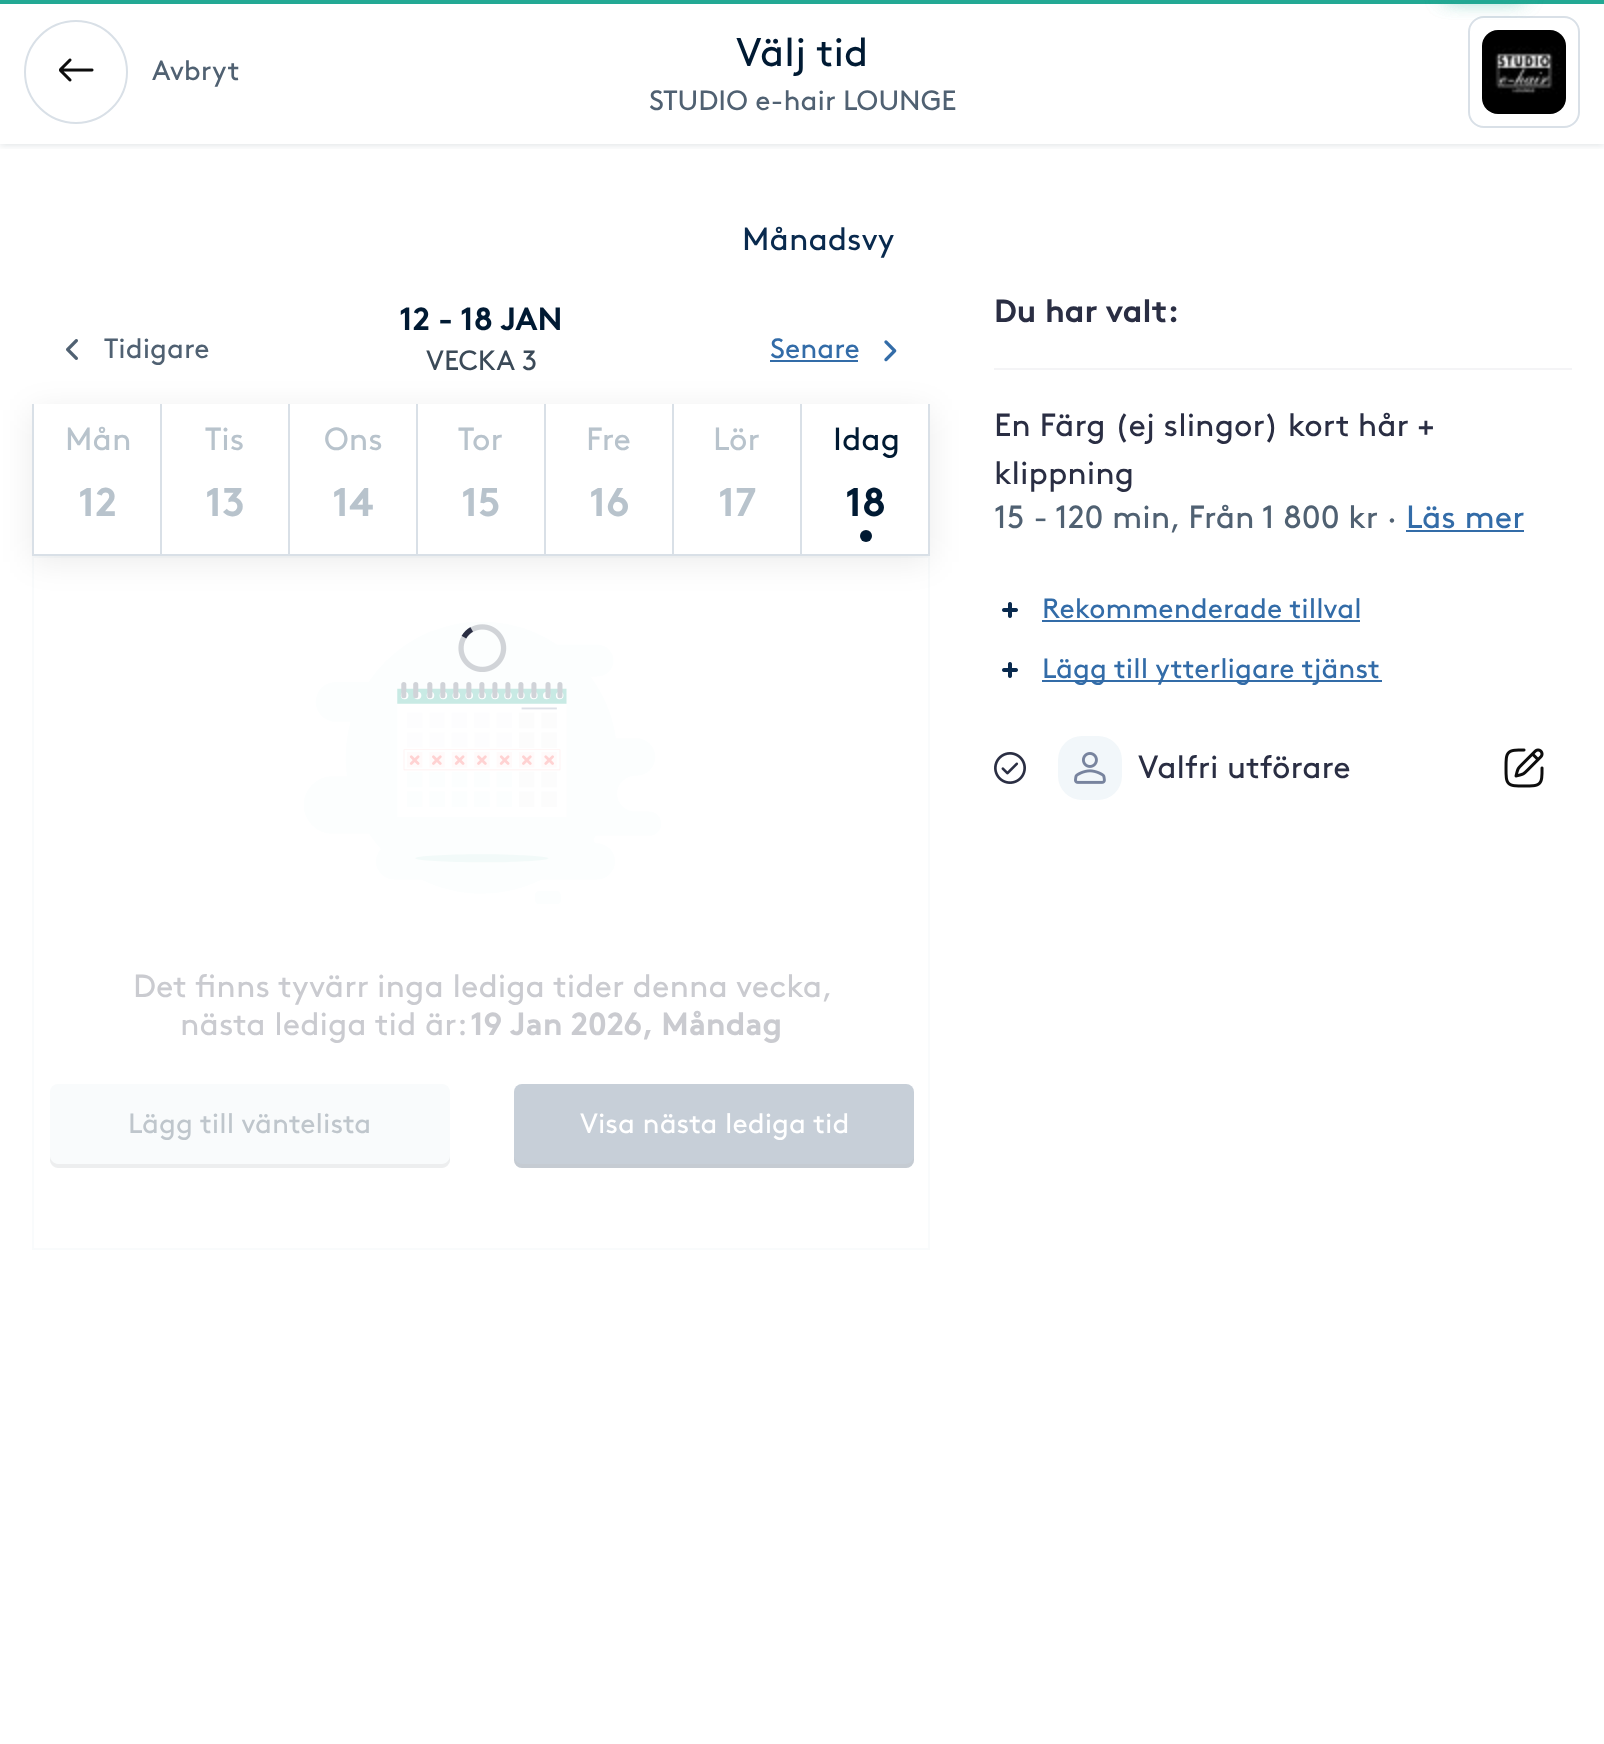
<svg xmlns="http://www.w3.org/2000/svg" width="1604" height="1744">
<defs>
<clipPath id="clip1"><rect x="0" y="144" width="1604" height="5"/></clipPath>
<clipPath id="clip2"><path d="M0 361h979v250h-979zm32 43h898v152h-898z" clip-rule="evenodd"/></clipPath>
</defs>
<rect width="100%" height="100%" fill="#fff"/>
<g clip-path="url(#clip1)">
<rect y="2" width="1604" height="144" fill="#001a331a" filter="blur(3px)"/>
</g>
<rect width="1604" height="4" fill="#23a994"/>
<rect x="1469" y="17" width="110" height="110" rx="15" fill="none" stroke="#d9e0e7" stroke-width="2"/>
<rect x="1444" y="-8" width="80" height="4" fill="#23a994" filter="blur(10px)"/>
<rect x="1444" y="-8" width="80" height="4" fill="#23a994" filter="blur(10px)"/>
<circle cx="76" cy="72" r="51" fill="none" stroke="#d9e0e7" stroke-width="2"/>
<image x="59" y="58" width="35" height="24" href="media/1.png"/>
<text x="152" y="80" style="font-family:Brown;font-size:28px;fill:#506172">Avbryt</text>
<text x="736" y="66" style="font-family:Brown;font-size:40px;fill:#001a33">Välj tid</text>
<text x="649" y="110" style="font-family:Brown;font-size:28px;fill:#506172">STUDIO e-hair LOUNGE</text>
<image x="1482" y="30" width="84" height="84" href="media/2.png"/>
<text x="742" y="250" style="font-family:Brown;font-size:32px;fill:#092a4e">Månadsvy</text>
<text x="399" y="330" style="font-family:Brown;font-size:32px;font-weight:bold;fill:#001a33">12 - 18 JAN</text>
<text x="426" y="370" style="font-family:Brown;font-size:28px;fill:#3b4a58">VECKA 3</text>
<rect x="33" y="557" width="896" height="692" fill="none" stroke="#f9fbfc" stroke-width="2"/>
<g clip-path="url(#clip2)">
<rect x="32" y="410" width="898" height="152" fill="#00000014" filter="blur(16px)"/>
</g>
<image x="66" y="339" width="12" height="21" href="media/3.png"/>
<text x="104" y="358" style="font-family:Brown;font-size:28px;fill:#506172">Tidigare</text>
<text x="770" y="358" style="font-family:Brown;font-size:28px;fill:#336ca8">Senare</text>
<rect x="770" y="360" width="88" height="2" fill="#336ca8"/>
<image x="884" y="340" width="13" height="22" href="media/4.png"/>
<rect x="32" y="554" width="768" height="2" fill="#d9e0e7"/>
<rect x="32" y="404" width="2" height="152" fill="#d9e0e7"/>
<text x="65" y="450" style="font-family:Brown;font-size:32px;fill:#b8c3cc">Mån</text>
<text x="78" y="516" style="font-family:Brown;font-size:40px;font-weight:bold;fill:#b8c3cc">12</text>
<rect x="160" y="404" width="2" height="152" fill="#d9e0e7"/>
<text x="205" y="450" style="font-family:Brown;font-size:32px;fill:#b8c3cc">Tis</text>
<text x="205" y="516" style="font-family:Brown;font-size:40px;font-weight:bold;fill:#b8c3cc">13</text>
<rect x="288" y="404" width="2" height="152" fill="#d9e0e7"/>
<text x="324" y="450" style="font-family:Brown;font-size:32px;fill:#b8c3cc">Ons</text>
<text x="332" y="516" style="font-family:Brown;font-size:40px;font-weight:bold;fill:#b8c3cc">14</text>
<rect x="416" y="404" width="2" height="152" fill="#d9e0e7"/>
<text x="458" y="450" style="font-family:Brown;font-size:32px;fill:#b8c3cc">Tor</text>
<text x="461" y="516" style="font-family:Brown;font-size:40px;font-weight:bold;fill:#b8c3cc">15</text>
<rect x="544" y="404" width="2" height="152" fill="#d9e0e7"/>
<text x="586" y="450" style="font-family:Brown;font-size:32px;fill:#b8c3cc">Fre</text>
<text x="589" y="516" style="font-family:Brown;font-size:40px;font-weight:bold;fill:#b8c3cc">16</text>
<rect x="672" y="404" width="2" height="152" fill="#d9e0e7"/>
<text x="713" y="450" style="font-family:Brown;font-size:32px;fill:#b8c3cc">Lör</text>
<text x="718" y="516" style="font-family:Brown;font-size:40px;font-weight:bold;fill:#b8c3cc">17</text>
<rect x="928" y="404" width="2" height="152" fill="#d9e0e7"/>
<rect x="800" y="554" width="130" height="2" fill="#d9e0e7"/>
<rect x="800" y="404" width="2" height="152" fill="#d9e0e7"/>
<text x="833" y="450" style="font-family:Brown;font-size:32px;fill:#001a33">Idag</text>
<text x="845" y="516" style="font-family:Brown;font-size:40px;font-weight:bold;fill:#001a33">18</text>
<circle cx="866" cy="536" r="6" fill="#001a33"/>
<image x="304" y="622" width="357" height="282" href="media/6.png"/>
<image x="458" y="624" width="49" height="48" href="media/5.png"/>
<text x="133" y="997" style="font-family:Brown;font-size:32px;fill:#cacbd0">Det finns tyvärr inga lediga tider denna vecka,</text>
<text x="180" y="1035" style="font-family:Brown;font-size:32px;fill:#cacbd0">nästa lediga tid är:</text>
<text x="470" y="1035" style="font-family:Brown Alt;font-size:32px;font-weight:bold;fill:#cacbd0">19 Jan 2026, Måndag</text>
<rect x="50" y="1084" width="400" height="84" rx="8" fill="#f9fbfc"/>
<path d="M50 1156v4c0 4 4 8 8 8h384c4 0 8-4 8-8v-4c0 4-4 8-8 8h-384c-4 0-8-4-8-8z" fill="#bfbfbf33"/>
<text x="128" y="1133" style="font-family:Brown;font-size:28px;fill:#bfc6cc">Lägg till väntelista</text>
<rect x="514" y="1084" width="400" height="84" rx="8" fill="#c7cfd8"/>
<path d="M514 1156v4c0 4 4 8 8 8h384c4 0 8-4 8-8v-4c0 4-4 8-8 8h-384c-4 0-8-4-8-8z" fill="#bfbfbf33"/>
<text x="580" y="1133" style="font-family:Brown;font-size:28px;fill:#fff">Visa nästa lediga tid</text>
<rect x="994" y="368" width="578" height="2" fill="#f4f4f6"/>
<text x="994" y="322" style="font-family:Brown;font-size:32px;font-weight:bold;fill:#2a2e43">Du har valt:</text>
<text x="994" y="436" style="font-family:Brown;font-size:32px;fill:#2a2e43">En Färg (ej slingor) kort hår +</text>
<text x="994" y="484" style="font-family:Brown;font-size:32px;fill:#2a2e43">klippning</text>
<text x="994" y="528" style="font-family:Brown;font-size:32px;fill:#506172">15 - 120 min, Från 1 800 kr ·</text>
<text x="1406" y="528" style="font-family:Brown;font-size:32px;fill:#336ca8">Läs mer</text>
<rect x="1406" y="530" width="118" height="2" fill="#336ca8"/>
<image x="1002" y="602" width="16" height="16" href="media/7.png"/>
<text x="1042" y="618" style="font-family:Brown;font-size:28px;fill:#336ca8">Rekommenderade tillval</text>
<rect x="1042" y="620" width="318" height="2" fill="#336ca8"/>
<image x="1002" y="662" width="16" height="16" href="media/7.png"/>
<rect x="1042" y="680" width="340" height="2" fill="#336ca8"/>
<text x="1042" y="678" style="font-family:Brown;font-size:28px;fill:#336ca8">Lägg till ytterligare tjänst</text>
<image x="994" y="752" width="32" height="32" href="media/8.png"/>
<rect x="1058" y="736" width="64" height="64" rx="24" fill="#f2f7fa"/>
<image x="1074" y="752" width="32" height="32" href="media/9.png"/>
<text x="1138" y="778" style="font-family:Brown;font-size:32px;fill:#2a2e43">Valfri utförare</text>
<image x="1504" y="748" width="40" height="40" href="media/10.png"/>
</svg>
